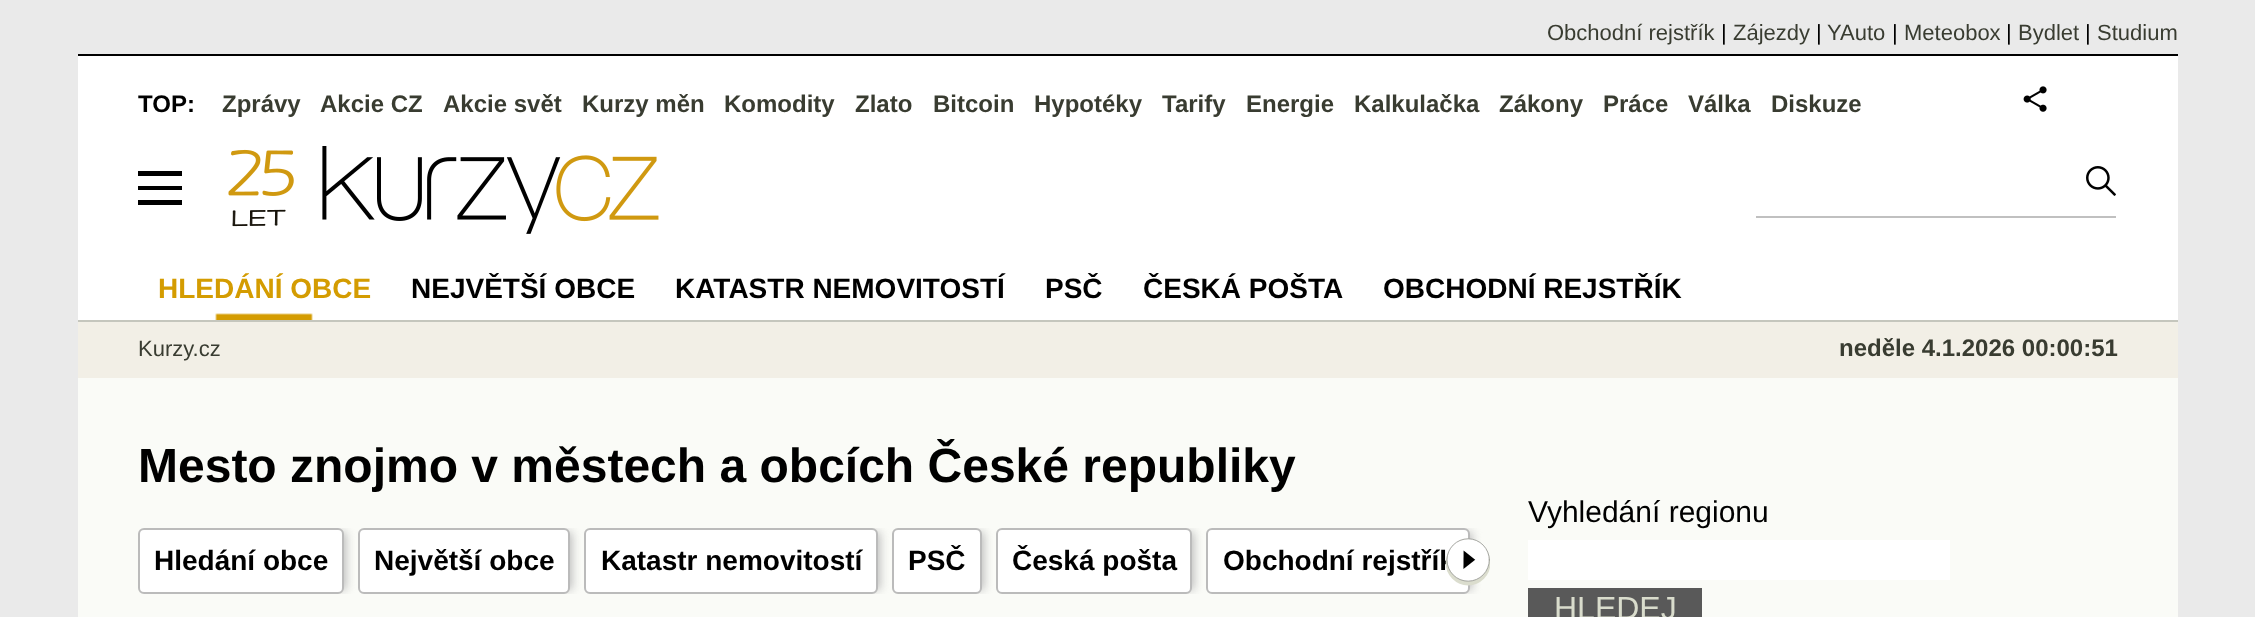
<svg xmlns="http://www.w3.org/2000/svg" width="2255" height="617">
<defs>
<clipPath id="clip1"><rect x="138" y="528" width="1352" height="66"/></clipPath>
</defs>
<rect width="100%" height="100%" fill="#eaeaea"/>
<rect x="78" y="378" width="2100" height="239" fill="#fafbf7"/>
<rect x="78" y="54" width="2100" height="2" fill="#000"/>
<text x="1547" y="40" style="font-family:Liberation Sans;font-size:22px;fill:#393c31">Obchodní rejstřík</text>
<text x="1721" y="40" style="font-family:Liberation Sans;font-size:22px;fill:#000">|</text>
<text x="1733" y="40" style="font-family:Liberation Sans;font-size:22px;fill:#393c31">Zájezdy</text>
<text x="1816" y="40" style="font-family:Liberation Sans;font-size:22px;fill:#000">|</text>
<text x="1827" y="40" style="font-family:Liberation Sans;font-size:22px;fill:#393c31">YAuto</text>
<text x="1892" y="40" style="font-family:Liberation Sans;font-size:22px;fill:#000">|</text>
<text x="1904" y="40" style="font-family:Liberation Sans;font-size:22px;fill:#393c31">Meteobox</text>
<text x="2006" y="40" style="font-family:Liberation Sans;font-size:22px;fill:#000">|</text>
<text x="2018" y="40" style="font-family:Liberation Sans;font-size:22px;fill:#393c31">Bydlet</text>
<text x="2085" y="40" style="font-family:Liberation Sans;font-size:22px;fill:#000">|</text>
<text x="2097" y="40" style="font-family:Liberation Sans;font-size:22px;fill:#393c31">Studium</text>
<rect x="78" y="56" width="2100" height="264" fill="#fff"/>
<rect x="138" y="171" width="44" height="5" fill="#000"/>
<image x="228" y="146" width="431" height="88" href="media/1.png"/>
<rect x="1756" y="216" width="360" height="2" fill="#c0c0c0"/>
<image x="2086" y="166" width="30" height="30" href="media/2.png"/>
<rect x="138" y="186" width="44" height="4" fill="#000"/>
<rect x="138" y="200" width="44" height="5" fill="#000"/>
<text x="138" y="112" style="font-family:Liberation Sans;font-size:24px;font-weight:bold;fill:#000">TOP:</text>
<text x="222" y="112" style="font-family:Liberation Sans;font-size:24px;font-weight:bold;fill:#393c31">Zprávy</text>
<text x="320" y="112" style="font-family:Liberation Sans;font-size:24px;font-weight:bold;fill:#393c31">Akcie CZ</text>
<text x="443" y="112" style="font-family:Liberation Sans;font-size:24px;font-weight:bold;fill:#393c31">Akcie svět</text>
<text x="582" y="112" style="font-family:Liberation Sans;font-size:24px;font-weight:bold;fill:#393c31">Kurzy měn</text>
<text x="724" y="112" style="font-family:Liberation Sans;font-size:24px;font-weight:bold;fill:#393c31">Komodity</text>
<text x="855" y="112" style="font-family:Liberation Sans;font-size:24px;font-weight:bold;fill:#393c31">Zlato</text>
<text x="933" y="112" style="font-family:Liberation Sans;font-size:24px;font-weight:bold;fill:#393c31">Bitcoin</text>
<text x="1034" y="112" style="font-family:Liberation Sans;font-size:24px;font-weight:bold;fill:#393c31">Hypotéky</text>
<text x="1162" y="112" style="font-family:Liberation Sans;font-size:24px;font-weight:bold;fill:#393c31">Tarify</text>
<text x="1246" y="112" style="font-family:Liberation Sans;font-size:24px;font-weight:bold;fill:#393c31">Energie</text>
<text x="1354" y="112" style="font-family:Liberation Sans;font-size:24px;font-weight:bold;fill:#393c31">Kalkulačka</text>
<text x="1499" y="112" style="font-family:Liberation Sans;font-size:24px;font-weight:bold;fill:#393c31">Zákony</text>
<text x="1603" y="112" style="font-family:Liberation Sans;font-size:24px;font-weight:bold;fill:#393c31">Práce</text>
<text x="1688" y="112" style="font-family:Liberation Sans;font-size:24px;font-weight:bold;fill:#393c31">Válka</text>
<text x="1771" y="112" style="font-family:Liberation Sans;font-size:24px;font-weight:bold;fill:#393c31">Diskuze</text>
<image x="2023" y="86" width="24" height="26" href="media/3.png"/>
<rect x="78" y="322" width="2100" height="56" fill="#f2efe6"/>
<text x="138" y="356" style="font-family:Liberation Sans;font-size:22px;fill:#393c31">Kurzy.cz</text>
<text x="1839" y="356" style="font-family:Liberation Sans;font-size:24px;font-weight:bold;fill:#393c31">neděle 4.1.2026 00:00:51</text>
<text x="138" y="482" style="font-family:Liberation Sans;font-size:48px;font-weight:bold;fill:#000">Mesto znojmo v městech a obcích České republiky</text>
<g clip-path="url(#clip1)">
<rect x="148" y="532" width="198" height="58" rx="2" fill="#bbb" filter="blur(5px)"/>
</g>
<rect x="139" y="529" width="204" height="64" rx="5" fill="#fff" stroke="#bbb" stroke-width="2"/>
<text x="154" y="570" style="font-family:Liberation Sans;font-size:28px;font-weight:bold;fill:#000">Hledání obce</text>
<g clip-path="url(#clip1)">
<rect x="368" y="532" width="204" height="58" rx="2" fill="#bbb" filter="blur(5px)"/>
</g>
<rect x="359" y="529" width="210" height="64" rx="5" fill="#fff" stroke="#bbb" stroke-width="2"/>
<text x="374" y="570" style="font-family:Liberation Sans;font-size:28px;font-weight:bold;fill:#000">Největší obce</text>
<g clip-path="url(#clip1)">
<rect x="594" y="532" width="286" height="58" rx="2" fill="#bbb" filter="blur(5px)"/>
</g>
<rect x="585" y="529" width="292" height="64" rx="5" fill="#fff" stroke="#bbb" stroke-width="2"/>
<text x="601" y="570" style="font-family:Liberation Sans;font-size:28px;font-weight:bold;fill:#000">Katastr nemovitostí</text>
<g clip-path="url(#clip1)">
<rect x="902" y="532" width="82" height="58" rx="2" fill="#bbb" filter="blur(5px)"/>
</g>
<rect x="893" y="529" width="88" height="64" rx="5" fill="#fff" stroke="#bbb" stroke-width="2"/>
<text x="908" y="570" style="font-family:Liberation Sans;font-size:28px;font-weight:bold;fill:#000">PSČ</text>
<g clip-path="url(#clip1)">
<rect x="1006" y="532" width="188" height="58" rx="2" fill="#bbb" filter="blur(5px)"/>
</g>
<rect x="997" y="529" width="194" height="64" rx="5" fill="#fff" stroke="#bbb" stroke-width="2"/>
<text x="1012" y="570" style="font-family:Liberation Sans;font-size:28px;font-weight:bold;fill:#000">Česká pošta</text>
<g clip-path="url(#clip1)">
<rect x="1216" y="532" width="256" height="58" rx="2" fill="#bbb" filter="blur(5px)"/>
</g>
<rect x="1207" y="529" width="262" height="64" rx="5" fill="#fff" stroke="#bbb" stroke-width="2"/>
<text x="1223" y="570" style="font-family:Liberation Sans;font-size:28px;font-weight:bold;fill:#000">Obchodní rejstřík</text>
<image x="1445" y="538" width="45" height="48" href="media/4.png"/>
<text x="1528" y="522" style="font-family:Liberation Sans;font-size:30px;fill:#000">Vyhledání regionu</text>
<rect x="1528" y="540" width="422" height="40" fill="#fff"/>
<rect x="1528" y="588" width="174" height="29" fill="#595959"/>
<text x="1554" y="619" style="font-family:Liberation Sans;font-size:32px;fill:#d9dccc">HLEDEJ</text>
<rect x="78" y="320" width="2100" height="2" fill="#c5c6bd"/>
<image x="215" y="313" width="98" height="7" href="media/5.png"/>
<text x="158" y="298" style="font-family:Liberation Sans;font-size:28px;font-weight:bold;fill:#d49c01">HLEDÁNÍ OBCE</text>
<text x="411" y="298" style="font-family:Liberation Sans;font-size:28px;font-weight:bold;fill:#000">NEJVĚTŠÍ OBCE</text>
<text x="675" y="298" style="font-family:Liberation Sans;font-size:28px;font-weight:bold;fill:#000">KATASTR NEMOVITOSTÍ</text>
<text x="1045" y="298" style="font-family:Liberation Sans;font-size:28px;font-weight:bold;fill:#000">PSČ</text>
<text x="1143" y="298" style="font-family:Liberation Sans;font-size:28px;font-weight:bold;fill:#000">ČESKÁ POŠTA</text>
<text x="1383" y="298" style="font-family:Liberation Sans;font-size:28px;font-weight:bold;fill:#000">OBCHODNÍ REJSTŘÍK</text>
</svg>
